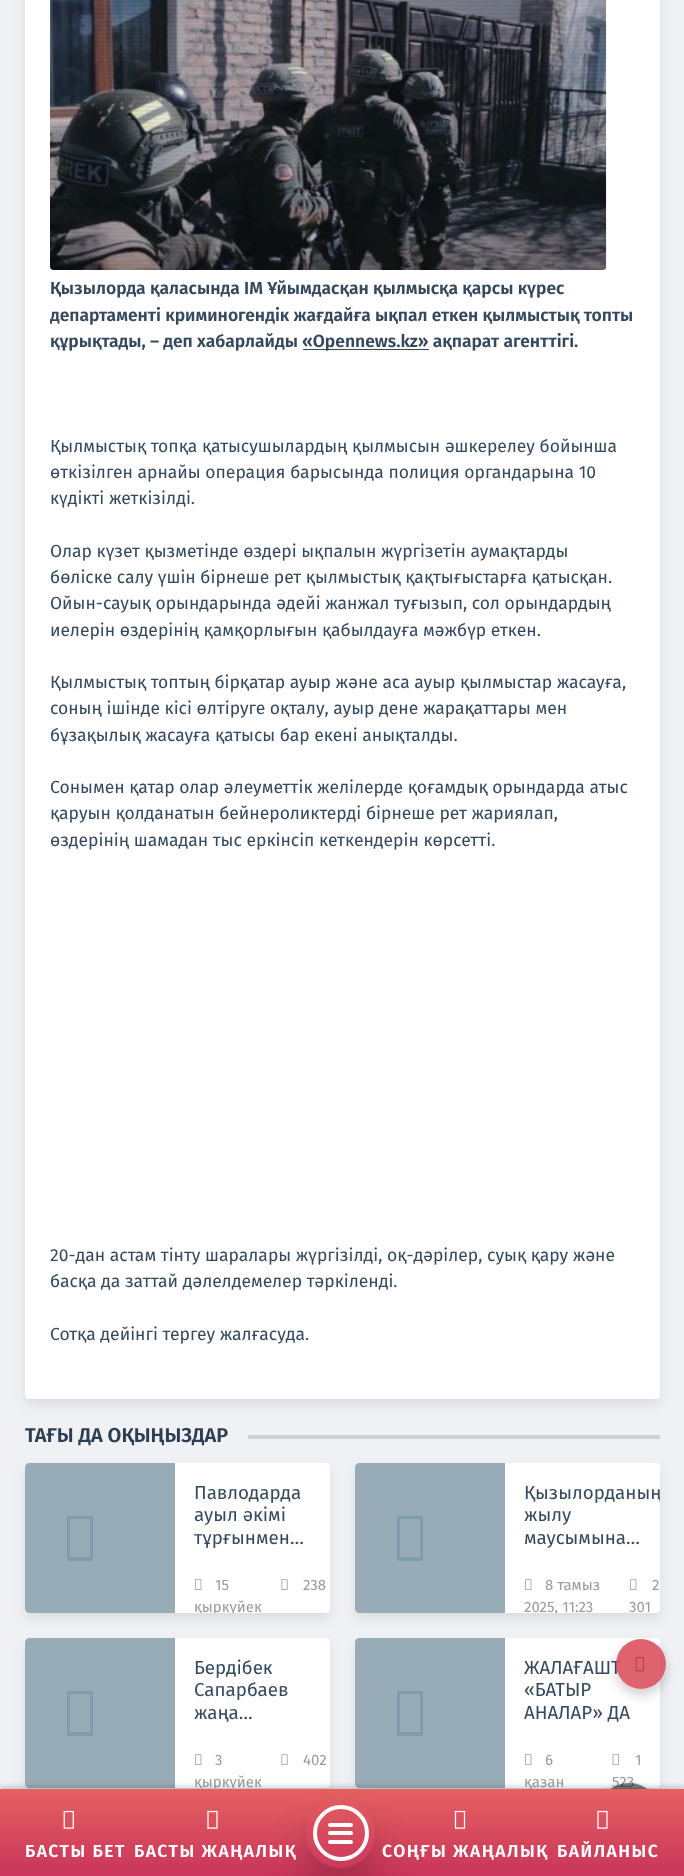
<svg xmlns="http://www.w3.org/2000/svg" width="684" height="1876">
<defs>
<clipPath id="clip1"><path d="M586 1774h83v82h-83zm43 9c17 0 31 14 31 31c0 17-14 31-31 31c-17 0-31-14-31-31c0-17 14-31 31-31z" clip-rule="evenodd"/></clipPath>
<clipPath id="clip2"><rect x="25" y="1463" width="305" height="150" rx="4"/></clipPath>
<clipPath id="clip3"><rect x="355" y="1463" width="305" height="150" rx="4"/></clipPath>
<clipPath id="clip4"><rect x="25" y="1638" width="305" height="150" rx="4"/></clipPath>
<linearGradient id="g1" gradientUnits="userSpaceOnUse" x1="343" y1="1789" x2="343" y2="1876"><stop offset="0" stop-color="#e66161"/><stop offset="1" stop-color="#c9355a"/></linearGradient>
<clipPath id="clip5"><path d="M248 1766h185v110h-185zm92.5 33c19 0 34.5 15.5 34.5 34.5c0 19-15.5 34.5-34.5 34.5c-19 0-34.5-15.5-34.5-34.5c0-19 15.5-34.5 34.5-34.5z" clip-rule="evenodd"/></clipPath>
<clipPath id="clip6"><path d="M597 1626h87v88h-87zm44 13c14 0 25 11 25 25c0 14-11 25-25 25c-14 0-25-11-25-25c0-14 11-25 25-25z" clip-rule="evenodd"/></clipPath>
</defs>
<rect width="100%" height="100%" fill="#f0f1f4"/>
<rect x="25" y="-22" width="635" height="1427" rx="4" fill="#00000014" filter="blur(6px)"/>
<rect x="25" y="-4" width="635" height="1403" rx="4" fill="#fff"/>
<image x="50" y="0" width="557" height="270" href="media/1.png"/>
<text x="50" y="294" style="font-family:Fira Sans;font-size:17.5px;font-weight:600;fill:#34495e">Қызылорда қаласында ІМ Ұйымдасқан қылмысқа қарсы күрес</text>
<text x="50" y="321" style="font-family:Fira Sans;font-size:17.5px;font-weight:600;fill:#34495e">департаменті криминогендік жағдайға ықпал еткен қылмыстық топты</text>
<text x="50" y="347" style="font-family:Fira Sans;font-size:17.5px;font-weight:600;fill:#34495e">құрықтады, – деп хабарлайды</text>
<rect x="303" y="349" width="126" height="1" fill="#34495e"/>
<text x="302" y="347" style="font-family:Fira Sans;font-size:17.5px;font-weight:600;fill:#34495e">«Opennews.kz» ақпарат агенттігі.</text>
<text x="50" y="452" style="font-family:Fira Sans;font-size:17.5px;fill:#34495e">Қылмыстық топқа қатысушылардың қылмысын әшкерелеу бойынша</text>
<text x="50" y="478" style="font-family:Fira Sans;font-size:17.5px;fill:#34495e">өткізілген арнайы операция барысында полиция органдарына 10</text>
<text x="50" y="504" style="font-family:Fira Sans;font-size:17.5px;fill:#34495e">күдікті жеткізілді.</text>
<text x="50" y="557" style="font-family:Fira Sans;font-size:17.5px;fill:#34495e">Олар күзет қызметінде өздері ықпалын жүргізетін аумақтарды</text>
<text x="50" y="583" style="font-family:Fira Sans;font-size:17.5px;fill:#34495e">бөліске салу үшін бірнеше рет қылмыстық қақтығыстарға қатысқан.</text>
<text x="50" y="609" style="font-family:Fira Sans;font-size:17.5px;fill:#34495e">Ойын-сауық орындарында әдейі жанжал туғызып, сол орындардың</text>
<text x="50" y="636" style="font-family:Fira Sans;font-size:17.5px;fill:#34495e">иелерін өздерінің қамқорлығын қабылдауға мәжбүр еткен.</text>
<text x="50" y="688" style="font-family:Fira Sans;font-size:17.5px;fill:#34495e">Қылмыстық топтың бірқатар ауыр және аса ауыр қылмыстар жасауға,</text>
<text x="50" y="714" style="font-family:Fira Sans;font-size:17.5px;fill:#34495e">соның ішінде кісі өлтіруге оқталу, ауыр дене жарақаттары мен</text>
<text x="50" y="741" style="font-family:Fira Sans;font-size:17.5px;fill:#34495e">бұзақылық жасауға қатысы бар екені анықталды.</text>
<text x="50" y="793" style="font-family:Fira Sans;font-size:17.5px;fill:#34495e">Сонымен қатар олар әлеуметтік желілерде қоғамдық орындарда атыс</text>
<text x="50" y="819" style="font-family:Fira Sans;font-size:17.5px;fill:#34495e">қаруын қолданатын бейнероликтерді бірнеше рет жариялап,</text>
<text x="50" y="846" style="font-family:Fira Sans;font-size:17.5px;fill:#34495e">өздерінің шамадан тыс еркінсіп кеткендерін көрсетті.</text>
<text x="50" y="1261" style="font-family:Fira Sans;font-size:17.5px;fill:#34495e">20-дан астам тінту шаралары жүргізілді, оқ-дәрілер, суық қару және</text>
<text x="50" y="1287" style="font-family:Fira Sans;font-size:17.5px;fill:#34495e">басқа да заттай дәлелдемелер тәркіленді.</text>
<text x="50" y="1340" style="font-family:Fira Sans;font-size:17.5px;fill:#34495e">Сотқа дейінгі тергеу жалғасуда.</text>
<rect x="355" y="1644" width="305" height="150" rx="4" fill="#00000014" filter="blur(6px)"/>
<rect x="355" y="1638" width="305" height="150" rx="4" fill="#fff"/>
<g clip-path="url(#clip1)">
<rect x="596" y="1784" width="63" height="62" rx="31" fill="#00000026" filter="blur(3px)"/>
</g>
<text x="612" y="1787" style="font-family:Fira Sans;font-size:15px;fill:#9b9b9b">523</text>
<circle cx="629" cy="1814" r="31" fill="#00000080"/>
<text x="25" y="1442" style="font-family:Fira Sans;font-size:20px;font-weight:600;fill:#2c3e50">ТАҒЫ ДА ОҚЫҢЫЗДАР</text>
<rect x="248" y="1435" width="412" height="4" fill="#d2d2d2"/>
<rect x="25" y="1469" width="305" height="150" rx="4" fill="#00000014" filter="blur(6px)"/>
<rect x="25" y="1463" width="305" height="150" rx="4" fill="#fff"/>
<path d="M29 1463h146v150h-146c-2 0-4-2-4-4v-142c0-2 2-4 4-4z" fill="#bdd8e7"/>
<path d="M29 1463h146v150h-146c-2 0-4-2-4-4v-142c0-2 2-4 4-4z" fill="#ffffff12"/>
<path d="M67 1561v-45h26v45zm3-4h20v-38h-20z" fill="#a6c7d8"/>
<path d="M29 1463h146v150h-146c-2 0-4-2-4-4v-142c0-2 2-4 4-4z" fill="#00000036"/>
<text x="194" y="1499" style="font-family:Fira Sans;font-size:18.75px;fill:#34495e">Павлодарда</text>
<text x="194" y="1521" style="font-family:Fira Sans;font-size:18.75px;fill:#34495e">ауыл әкімі</text>
<text x="194" y="1544" style="font-family:Fira Sans;font-size:18.75px;fill:#34495e">тұрғынмен…</text>
<image x="195" y="1579" width="7" height="11" href="media/2.png"/>
<text x="215" y="1590" style="font-family:Fira Sans;font-size:15px;fill:#9b9b9b">15</text>
<g clip-path="url(#clip2)">
<text x="194" y="1612" style="font-family:Fira Sans;font-size:15px;fill:#9b9b9b">қыркүйек</text>
</g>
<image x="281" y="1579" width="7" height="11" href="media/3.png"/>
<text x="303" y="1590" style="font-family:Fira Sans;font-size:15px;fill:#9b9b9b">238</text>
<rect x="355" y="1469" width="305" height="150" rx="4" fill="#00000014" filter="blur(6px)"/>
<rect x="355" y="1463" width="305" height="150" rx="4" fill="#fff"/>
<path d="M359 1463h146v150h-146c-2 0-4-2-4-4v-142c0-2 2-4 4-4z" fill="#bdd8e7"/>
<path d="M359 1463h146v150h-146c-2 0-4-2-4-4v-142c0-2 2-4 4-4z" fill="#ffffff12"/>
<path d="M397 1561v-45h26v45zm3-4h20v-38h-20z" fill="#a6c7d8"/>
<path d="M359 1463h146v150h-146c-2 0-4-2-4-4v-142c0-2 2-4 4-4z" fill="#00000036"/>
<g clip-path="url(#clip3)">
<text x="524" y="1499" style="font-family:Fira Sans;font-size:18.75px;fill:#34495e">Қызылорданың</text>
</g>
<text x="524" y="1521" style="font-family:Fira Sans;font-size:18.75px;fill:#34495e">жылу</text>
<text x="524" y="1544" style="font-family:Fira Sans;font-size:18.75px;fill:#34495e">маусымына…</text>
<image x="525" y="1579" width="7" height="11" href="media/2.png"/>
<text x="545" y="1590" style="font-family:Fira Sans;font-size:15px;fill:#9b9b9b">8 тамыз</text>
<g clip-path="url(#clip3)">
<text x="524" y="1612" style="font-family:Fira Sans;font-size:15px;fill:#9b9b9b">2025, 11:23</text>
</g>
<image x="630" y="1579" width="7" height="11" href="media/2.png"/>
<text x="652" y="1590" style="font-family:Fira Sans;font-size:15px;fill:#9b9b9b">2</text>
<text x="629" y="1612" style="font-family:Fira Sans;font-size:15px;fill:#9b9b9b">301</text>
<rect x="25" y="1644" width="305" height="150" rx="4" fill="#00000014" filter="blur(6px)"/>
<rect x="25" y="1638" width="305" height="150" rx="4" fill="#fff"/>
<path d="M29 1638h146v150h-146c-2 0-4-2-4-4v-142c0-2 2-4 4-4z" fill="#bdd8e7"/>
<path d="M29 1638h146v150h-146c-2 0-4-2-4-4v-142c0-2 2-4 4-4z" fill="#ffffff12"/>
<path d="M67 1736v-45h26v45zm3-4h20v-38h-20z" fill="#a6c7d8"/>
<path d="M29 1638h146v150h-146c-2 0-4-2-4-4v-142c0-2 2-4 4-4z" fill="#00000036"/>
<text x="194" y="1674" style="font-family:Fira Sans;font-size:18.75px;fill:#34495e">Бердібек</text>
<text x="194" y="1696" style="font-family:Fira Sans;font-size:18.75px;fill:#34495e">Сапарбаев</text>
<text x="194" y="1719" style="font-family:Fira Sans;font-size:18.75px;fill:#34495e">жаңа…</text>
<image x="195" y="1754" width="7" height="11" href="media/2.png"/>
<text x="215" y="1765" style="font-family:Fira Sans;font-size:15px;fill:#9b9b9b">3</text>
<g clip-path="url(#clip4)">
<text x="194" y="1787" style="font-family:Fira Sans;font-size:15px;fill:#9b9b9b">қыркүйек</text>
</g>
<image x="281" y="1754" width="7" height="11" href="media/3.png"/>
<text x="303" y="1765" style="font-family:Fira Sans;font-size:15px;fill:#9b9b9b">402</text>
<path d="M359 1638h146v150h-146c-2 0-4-2-4-4v-142c0-2 2-4 4-4z" fill="#bdd8e7"/>
<path d="M359 1638h146v150h-146c-2 0-4-2-4-4v-142c0-2 2-4 4-4z" fill="#ffffff12"/>
<path d="M397 1736v-45h26v45zm3-4h20v-38h-20z" fill="#a6c7d8"/>
<path d="M359 1638h146v150h-146c-2 0-4-2-4-4v-142c0-2 2-4 4-4z" fill="#00000036"/>
<text x="524" y="1674" style="font-family:Fira Sans;font-size:18.75px;fill:#34495e">ЖАЛАҒАШТ</text>
<text x="524" y="1696" style="font-family:Fira Sans;font-size:18.75px;fill:#34495e">«БАТЫР</text>
<text x="524" y="1719" style="font-family:Fira Sans;font-size:18.75px;fill:#34495e">АНАЛАР» ДА</text>
<image x="525" y="1754" width="7" height="11" href="media/2.png"/>
<text x="545" y="1765" style="font-family:Fira Sans;font-size:15px;fill:#9b9b9b">6</text>
<text x="524" y="1787" style="font-family:Fira Sans;font-size:15px;fill:#9b9b9b">қазан</text>
<image x="612" y="1754" width="7" height="11" href="media/4.png"/>
<text x="635" y="1765" style="font-family:Fira Sans;font-size:15px;fill:#9b9b9b">1</text>
<rect y="1786" width="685" height="88" fill="#00000029" filter="blur(2.5px)"/>
<rect y="1789" width="684" height="87" fill="url(#g1)"/>
<image x="63" y="1810" width="11" height="19" href="media/5.png"/>
<text x="25" y="1857" style="font-family:Fira Sans;font-size:17.5px;font-weight:600;letter-spacing:1.5px;fill:#fff">БАСТЫ БЕТ</text>
<image x="207" y="1810" width="11" height="19" href="media/6.png"/>
<text x="134" y="1857" style="font-family:Fira Sans;font-size:17.5px;font-weight:600;letter-spacing:1.5px;fill:#fff">БАСТЫ ЖАҢАЛЫҚ</text>
<g clip-path="url(#clip5)">
<rect x="306" y="1824" width="69" height="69" rx="34.5" fill="#00000033" filter="blur(19px)"/>
</g>
<circle cx="341" cy="1833" r="26" fill="none" stroke="#fff" stroke-width="4"/>
<rect x="328" y="1831" width="25" height="4" rx="2" fill="#fff"/>
<rect x="328" y="1823" width="25" height="4" rx="2" fill="#fff"/>
<rect x="328" y="1840" width="25" height="4" rx="2" fill="#fff"/>
<image x="454" y="1810" width="12" height="19" href="media/7.png"/>
<text x="382" y="1857" style="font-family:Fira Sans;font-size:17.5px;font-weight:600;letter-spacing:1.5px;fill:#fff">СОҢҒЫ ЖАҢАЛЫҚ</text>
<image x="597" y="1810" width="11" height="19" href="media/6.png"/>
<text x="557" y="1857" style="font-family:Fira Sans;font-size:17.5px;font-weight:600;letter-spacing:1.5px;fill:#fff">БАЙЛАНЫС</text>
<g clip-path="url(#clip6)">
<rect x="616" y="1645" width="50" height="50" rx="25" fill="#0000002e" filter="blur(6px)"/>
</g>
<circle cx="641" cy="1664" r="25" fill="#dc525fe6"/>
<image x="635" y="1657" width="9" height="15" href="media/8.png"/>
</svg>
